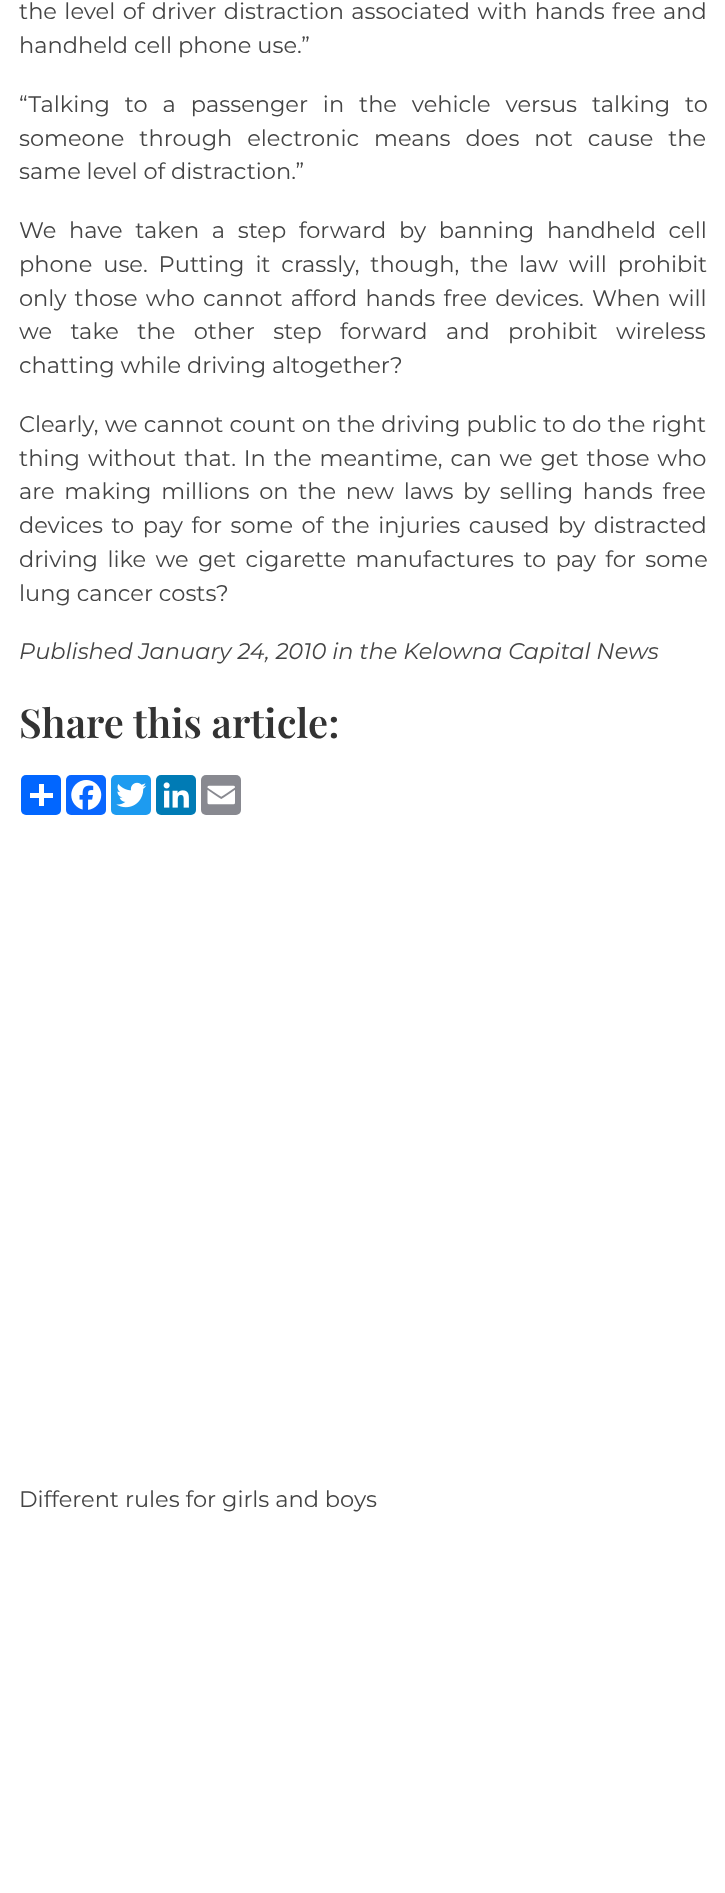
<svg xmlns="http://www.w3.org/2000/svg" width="725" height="1893">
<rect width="100%" height="100%" fill="#fff"/>
<text x="19" y="19" word-spacing="1.5" style="font-family:Montserrat;font-size:22.5px;fill:#444">the level of driver distraction associated with hands free and</text>
<text x="19" y="53" style="font-family:Montserrat;font-size:22.5px;fill:#444">handheld cell phone use.”</text>
<text x="19" y="112" word-spacing="9" style="font-family:Montserrat;font-size:22.5px;fill:#444">“Talking to a passenger in the vehicle versus talking to</text>
<text x="19" y="146" word-spacing="9" style="font-family:Montserrat;font-size:22.5px;fill:#444">someone through electronic means does not cause the</text>
<text x="19" y="179" style="font-family:Montserrat;font-size:22.5px;fill:#444">same level of distraction.”</text>
<text x="19" y="238" word-spacing="6.75" style="font-family:Montserrat;font-size:22.5px;fill:#444">We have taken a step forward by banning handheld cell</text>
<text x="19" y="272" word-spacing="5" style="font-family:Montserrat;font-size:22.5px;fill:#444">phone use. Putting it crassly, though, the law will prohibit</text>
<text x="19" y="306" word-spacing="2.25" style="font-family:Montserrat;font-size:22.5px;fill:#444">only those who cannot afford hands free devices. When will</text>
<text x="19" y="339" word-spacing="12.5" style="font-family:Montserrat;font-size:22.5px;fill:#444">we take the other step forward and prohibit wireless</text>
<text x="19" y="373" style="font-family:Montserrat;font-size:22.5px;fill:#444">chatting while driving altogether?</text>
<text x="19" y="432" word-spacing="0.25" style="font-family:Montserrat;font-size:22.5px;fill:#444">Clearly, we cannot count on the driving public to do the right</text>
<text x="19" y="466" word-spacing="2" style="font-family:Montserrat;font-size:22.5px;fill:#444">thing without that. In the meantime, can we get those who</text>
<text x="19" y="499" word-spacing="3.75" style="font-family:Montserrat;font-size:22.5px;fill:#444">are making millions on the new laws by selling hands free</text>
<text x="19" y="533" word-spacing="2.6" style="font-family:Montserrat;font-size:22.5px;fill:#444">devices to pay for some of the injuries caused by distracted</text>
<text x="19" y="567" word-spacing="3.5" style="font-family:Montserrat;font-size:22.5px;fill:#444">driving like we get cigarette manufactures to pay for some</text>
<text x="19" y="601" style="font-family:Montserrat;font-size:22.5px;fill:#444">lung cancer costs?</text>
<text x="19" y="659" style="font-family:Montserrat;font-size:22.5px;font-style:italic;fill:#444">Published January 24, 2010 in the Kelowna Capital News</text>
<text x="19" y="738" style="font-family:Playfair Display;font-size:40px;font-weight:600;fill:#333">Share this article:</text>
<rect x="21" y="775" width="40" height="40" rx="5" fill="#0166ff"/>
<rect x="39" y="784" width="5" height="22" fill="#fff"/>
<rect x="30" y="793" width="23" height="5" fill="#fff"/>
<rect x="66" y="775" width="40" height="40" rx="5" fill="#0866ff"/>
<image x="71" y="780" width="31" height="30" href="media/1.png"/>
<rect x="111" y="775" width="40" height="40" rx="5" fill="#1d9bf0"/>
<image x="116" y="782" width="31" height="26" href="media/2.png"/>
<rect x="156" y="775" width="40" height="40" rx="5" fill="#007bb5"/>
<image x="163" y="782" width="26" height="26" href="media/3.png"/>
<rect x="201" y="775" width="40" height="40" rx="5" fill="#888990"/>
<image x="207" y="785" width="28" height="20" href="media/4.png"/>
<text x="19" y="1507" style="font-family:Montserrat;font-size:22.5px;fill:#444">Different rules for girls and boys</text>
</svg>
